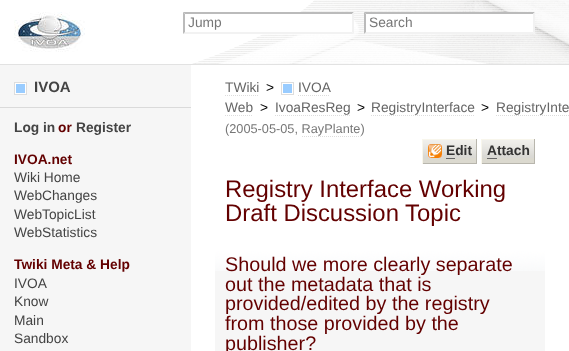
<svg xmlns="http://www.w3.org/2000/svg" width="569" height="351">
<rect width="100%" height="100%" fill="#f6f6f6"/>
<rect y="64" width="569" height="1" fill="#e2e2e2"/>
<image x="0" y="0" width="569" height="64" href="media/1.png"/>
<image x="14" y="12" width="71" height="40" href="media/2.png"/>
<rect x="264" y="12" width="90" height="22" fill="#fff"/>
<path d="M183 12h171l-2 2h-167z" fill="#bbb"/>
<path d="M354 12v22l-2-2v-18z" fill="#f2f2f2"/>
<path d="M354 34h-171l2-2h167z" fill="#f2f2f2"/>
<path d="M183 34v-22l2 2v18z" fill="#bbb"/>
<text x="188" y="27" style="font-family:Liberation Sans;font-size:13.75px;fill:#777">Jump</text>
<rect x="364" y="12" width="171" height="22" fill="#fff"/>
<path d="M364 12h171l-2 2h-167z" fill="#bbb"/>
<path d="M535 12v22l-2-2v-18z" fill="#f2f2f2"/>
<path d="M535 34h-171l2-2h167z" fill="#f2f2f2"/>
<path d="M364 34v-22l2 2v18z" fill="#bbb"/>
<text x="369" y="27" style="font-family:Liberation Sans;font-size:13.75px;fill:#777">Search</text>
<rect x="191" y="65" width="378" height="286" fill="#fff"/>
<rect y="107" width="191" height="1" fill="#dadada"/>
<rect x="16" y="84" width="9" height="9" fill="#9cf"/>
<image x="14" y="82" width="13" height="13" href="media/3.png"/>
<text x="34" y="92" style="font-family:Liberation Sans;font-size:15px;font-weight:bold;fill:#444">IVOA</text>
<text x="14" y="132" style="font-family:Liberation Sans;font-size:13.75px;font-weight:bold;fill:#444">Log in</text>
<text x="58" y="132" style="font-family:Liberation Sans;font-size:13.75px;font-weight:bold;fill:#630000">or</text>
<text x="76" y="132" style="font-family:Liberation Sans;font-size:13.75px;font-weight:bold;fill:#444">Register</text>
<text x="14" y="164" style="font-family:Liberation Sans;font-size:13.75px;font-weight:bold;fill:#630000">IVOA.net</text>
<text x="14" y="182" style="font-family:Liberation Sans;font-size:13.75px;fill:#444">Wiki Home</text>
<text x="14" y="200" style="font-family:Liberation Sans;font-size:13.75px;fill:#444">WebChanges</text>
<text x="14" y="219" style="font-family:Liberation Sans;font-size:13.75px;fill:#444">WebTopicList</text>
<text x="14" y="237" style="font-family:Liberation Sans;font-size:13.75px;fill:#444">WebStatistics</text>
<text x="14" y="269" style="font-family:Liberation Sans;font-size:13.75px;font-weight:bold;fill:#630000">Twiki Meta &amp; Help</text>
<text x="14" y="288" style="font-family:Liberation Sans;font-size:13.75px;fill:#444">IVOA</text>
<text x="14" y="306" style="font-family:Liberation Sans;font-size:13.75px;fill:#444">Know</text>
<text x="14" y="325" style="font-family:Liberation Sans;font-size:13.75px;fill:#444">Main</text>
<text x="14" y="343" style="font-family:Liberation Sans;font-size:13.75px;fill:#444">Sandbox</text>
<text x="225" y="92" style="font-family:Liberation Sans;font-size:13.75px;fill:#666">TWiki</text>
<path d="M225 95.5h34" fill="none" stroke="#ddd" stroke-dasharray="1 1"/>
<text x="266" y="92" style="font-family:Liberation Sans;font-size:13.75px;fill:#000">&gt;</text>
<rect x="283" y="84" width="9" height="9" fill="#9cf"/>
<image x="281" y="82" width="13" height="13" href="media/3.png"/>
<text x="298" y="92" style="font-family:Liberation Sans;font-size:13.75px;fill:#666">IVOA</text>
<path d="M298 95.5h32" fill="none" stroke="#ddd" stroke-dasharray="1 1"/>
<text x="225" y="112" style="font-family:Liberation Sans;font-size:13.75px;fill:#666">Web</text>
<path d="M225 115.5h28" fill="none" stroke="#ddd" stroke-dasharray="1 1"/>
<text x="260" y="112" style="font-family:Liberation Sans;font-size:13.75px;fill:#000">&gt;</text>
<text x="275" y="112" style="font-family:Liberation Sans;font-size:13.75px;fill:#666">IvoaResReg</text>
<path d="M275 115.5h75" fill="none" stroke="#ddd" stroke-dasharray="1 1"/>
<text x="357" y="112" style="font-family:Liberation Sans;font-size:13.75px;fill:#000">&gt;</text>
<text x="371" y="112" style="font-family:Liberation Sans;font-size:13.75px;fill:#666">RegistryInterface</text>
<path d="M371 115.5h103" fill="none" stroke="#ddd" stroke-dasharray="1 1"/>
<text x="481" y="112" style="font-family:Liberation Sans;font-size:13.75px;fill:#000">&gt;</text>
<text x="496" y="112" style="font-family:Liberation Sans;font-size:13.75px;fill:#666">RegistryInte</text>
<path d="M496 115.5h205" fill="none" stroke="#ddd" stroke-dasharray="1 1"/>
<text x="225" y="133" style="font-family:Liberation Sans;font-size:12.75px;fill:#777">(2005-05-05, RayPlante)</text>
<path d="M302 136.5h59" fill="none" stroke="#ddd" stroke-dasharray="1 1"/>
<rect x="423" y="158" width="53" height="5" fill="#dbd9cf"/>
<image x="423" y="140" width="53" height="18" href="media/4.png"/>
<rect x="422" y="139" width="55" height="1" fill="#f8f6ec"/>
<rect x="476" y="139" width="1" height="25" fill="#b8b6ad"/>
<rect x="422" y="163" width="55" height="1" fill="#b8b6ad"/>
<rect x="422" y="139" width="1" height="25" fill="#f8f6ec"/>
<image x="428" y="144" width="14" height="14" href="media/5.png"/>
<text x="446" y="155" style="font-family:Liberation Sans;font-size:13.75px;font-weight:bold;fill:#333">Edit</text>
<rect x="446" y="158" width="9" height="1" fill="#666"/>
<rect x="482" y="158" width="52" height="5" fill="#dbd9cf"/>
<image x="482" y="140" width="52" height="18" href="media/6.png"/>
<rect x="481" y="139" width="54" height="1" fill="#f8f6ec"/>
<rect x="534" y="139" width="1" height="25" fill="#b8b6ad"/>
<rect x="481" y="163" width="54" height="1" fill="#b8b6ad"/>
<rect x="481" y="139" width="1" height="25" fill="#f8f6ec"/>
<text x="487" y="155" style="font-family:Liberation Sans;font-size:13.75px;font-weight:bold;fill:#333">Attach</text>
<rect x="487" y="158" width="10" height="1" fill="#666"/>
<text x="225" y="197" style="font-family:Liberation Sans;font-size:23.9px;fill:#630000">Registry Interface Working</text>
<text x="225" y="221" style="font-family:Liberation Sans;font-size:23.9px;fill:#630000">Draft Discussion Topic</text>
<rect x="215" y="271" width="330" height="80" fill="#f6f6f6"/>
<image x="215" y="250" width="330" height="21" href="media/7.png"/>
<text x="225" y="271" style="font-family:Liberation Sans;font-size:19.75px;fill:#630000">Should we more clearly separate</text>
<text x="225" y="291" style="font-family:Liberation Sans;font-size:19.75px;fill:#630000">out the metadata that is</text>
<text x="225" y="310" style="font-family:Liberation Sans;font-size:19.75px;fill:#630000">provided/edited by the registry</text>
<text x="225" y="330" style="font-family:Liberation Sans;font-size:19.75px;fill:#630000">from those provided by the</text>
<text x="225" y="350" style="font-family:Liberation Sans;font-size:19.75px;fill:#630000">publisher?</text>
</svg>
